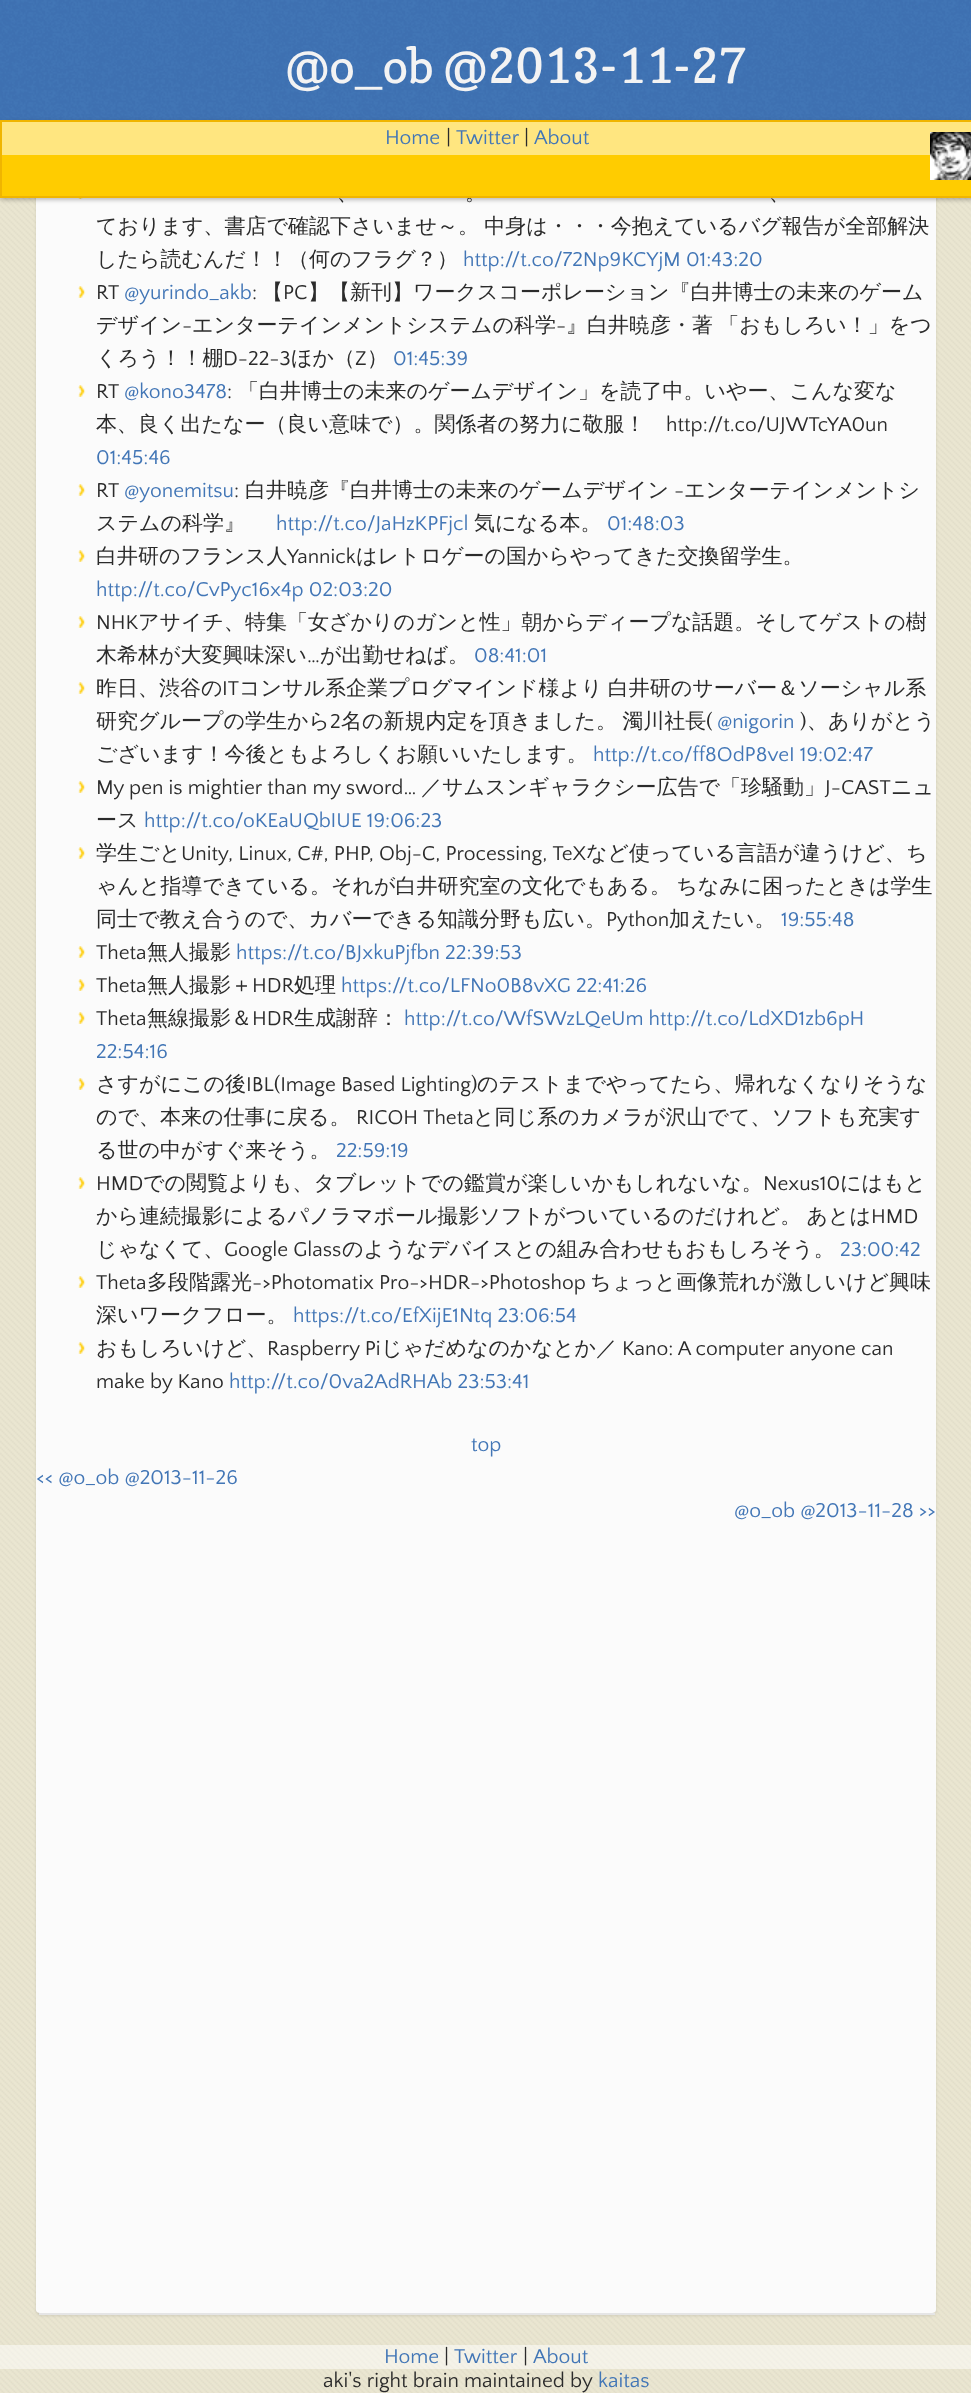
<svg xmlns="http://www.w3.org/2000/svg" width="971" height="2393">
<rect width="100%" height="100%" fill="#fff"/>
<image x="0" y="198" width="971" height="2195" href="media/1.png"/>
<rect x="36" y="147" width="900" height="2169" rx="5" fill="#00000017" filter="blur(1.5px)"/>
<path d="M40 147h892c2 0 4 1 4 3v2160c0 2-2 3-4 3h-892c-2 0-4-1-4-3v-2160c0-2 2-3 4-3z" fill="#fbfbfb"/>
<rect x="39" y="2313" width="896" height="2" fill="#e5e5e5"/>
<image x="0" y="0" width="971" height="120" href="media/2.png"/>
<text x="286" y="83" style="font-family:Copse;font-size:48px;fill:#f3f3f3">@o_ob @2013-11-27</text>
<image x="78" y="198" width="5" height="1" href="media/3.png"/>
<text x="337" y="200" word-spacing="-1" style="font-family:WenQuanYi Zen Hei;font-size:21px;font-weight:500;fill:#2b2b2b">、</text>
<text x="465" y="200" word-spacing="-1" style="font-family:WenQuanYi Zen Hei;font-size:21px;font-weight:500;fill:#2b2b2b">。</text>
<text x="769" y="200" word-spacing="-1" style="font-family:WenQuanYi Zen Hei;font-size:21px;font-weight:500;fill:#2b2b2b">、</text>
<text x="96" y="233" word-spacing="-1" style="font-family:WenQuanYi Zen Hei;font-size:21px;font-weight:500;fill:#2b2b2b">ております、書店で確認下さいませ～。 中身は・・・今抱えているバグ報告が全部解決</text>
<text x="96" y="266" style="font-family:WenQuanYi Zen Hei;font-size:21px;font-weight:500;fill:#2b2b2b">したら読むんだ！！（何のフラグ？）</text>
<text x="463" y="266" style="font-family:Quattrocento Sans;font-size:21px;fill:#4276b6">http://t.co/72Np9KCYjM 01:43:20</text>
<image x="78" y="286" width="8" height="12" href="media/4.png"/>
<text x="96" y="299" style="font-family:Quattrocento Sans;font-size:21px;fill:#2b2b2b">RT</text>
<text x="124" y="299" style="font-family:Quattrocento Sans;font-size:21px;fill:#4276b6">@yurindo_akb</text>
<text x="252" y="299" style="font-family:Quattrocento Sans;font-size:21px;fill:#2b2b2b">:</text>
<text x="262" y="299" style="font-family:WenQuanYi Zen Hei;font-size:21px;font-weight:500;fill:#2b2b2b">【</text>
<text x="283" y="299" style="font-family:Quattrocento Sans;font-size:21px;fill:#2b2b2b">PC</text>
<text x="308" y="299" style="font-family:WenQuanYi Zen Hei;font-size:21px;font-weight:500;fill:#2b2b2b">】【新刊】ワークスコーポレーション『白井博士の未来のゲーム</text>
<text x="96" y="332" style="font-family:WenQuanYi Zen Hei;font-size:21px;font-weight:500;fill:#2b2b2b">デザイン</text>
<text x="182" y="332" style="font-family:Quattrocento Sans;font-size:21px;fill:#2b2b2b">-</text>
<text x="192" y="332" style="font-family:WenQuanYi Zen Hei;font-size:21px;font-weight:500;fill:#2b2b2b">エンターテインメントシステムの科学</text>
<text x="556" y="332" style="font-family:Quattrocento Sans;font-size:21px;fill:#2b2b2b">-</text>
<text x="566" y="332" word-spacing="-1" style="font-family:WenQuanYi Zen Hei;font-size:21px;font-weight:500;fill:#2b2b2b">』白井暁彦・著 「おもしろい！」をつ</text>
<text x="96" y="365" style="font-family:WenQuanYi Zen Hei;font-size:21px;font-weight:500;fill:#2b2b2b">くろう！！棚</text>
<text x="223" y="365" style="font-family:Quattrocento Sans;font-size:21px;fill:#2b2b2b">D-22-3</text>
<text x="291" y="365" style="font-family:WenQuanYi Zen Hei;font-size:21px;font-weight:500;fill:#2b2b2b">ほか（</text>
<text x="355" y="365" style="font-family:Quattrocento Sans;font-size:21px;fill:#2b2b2b">Z</text>
<text x="367" y="365" style="font-family:WenQuanYi Zen Hei;font-size:21px;font-weight:500;fill:#2b2b2b">）</text>
<text x="393" y="365" style="font-family:Quattrocento Sans;font-size:21px;fill:#4276b6">01:45:39</text>
<image x="78" y="385" width="8" height="12" href="media/4.png"/>
<text x="96" y="398" style="font-family:Quattrocento Sans;font-size:21px;fill:#2b2b2b">RT</text>
<text x="124" y="398" style="font-family:Quattrocento Sans;font-size:21px;fill:#4276b6">@kono3478</text>
<text x="227" y="398" style="font-family:Quattrocento Sans;font-size:21px;fill:#2b2b2b">:</text>
<text x="238" y="398" style="font-family:WenQuanYi Zen Hei;font-size:21px;font-weight:500;fill:#2b2b2b">「白井博士の未来のゲームデザイン」を読了中。いやー、こんな変な</text>
<text x="96" y="431" style="font-family:WenQuanYi Zen Hei;font-size:21px;font-weight:500;fill:#2b2b2b">本、良く出たなー（良い意味で）。関係者の努力に敬服！</text>
<text x="666" y="431" style="font-family:Quattrocento Sans;font-size:21px;fill:#2b2b2b">http://t.co/UJWTcYA0un</text>
<text x="96" y="464" style="font-family:Quattrocento Sans;font-size:21px;fill:#4276b6">01:45:46</text>
<image x="78" y="484" width="8" height="12" href="media/4.png"/>
<text x="96" y="497" style="font-family:Quattrocento Sans;font-size:21px;fill:#2b2b2b">RT</text>
<text x="124" y="497" style="font-family:Quattrocento Sans;font-size:21px;fill:#4276b6">@yonemitsu</text>
<text x="234" y="497" style="font-family:Quattrocento Sans;font-size:21px;fill:#2b2b2b">:</text>
<text x="245" y="497" style="font-family:WenQuanYi Zen Hei;font-size:21px;font-weight:500;fill:#2b2b2b">白井暁彦『白井博士の未来のゲームデザイン</text>
<text x="674" y="497" style="font-family:Quattrocento Sans;font-size:21px;fill:#2b2b2b">-</text>
<text x="684" y="497" style="font-family:WenQuanYi Zen Hei;font-size:21px;font-weight:500;fill:#2b2b2b">エンターテインメントシ</text>
<text x="96" y="530" style="font-family:WenQuanYi Zen Hei;font-size:21px;font-weight:500;fill:#2b2b2b">ステムの科学』</text>
<text x="276" y="530" style="font-family:Quattrocento Sans;font-size:21px;fill:#4276b6">http://t.co/JaHzKPFjcl</text>
<text x="474" y="530" style="font-family:WenQuanYi Zen Hei;font-size:21px;font-weight:500;fill:#2b2b2b">気になる本。</text>
<text x="607" y="530" style="font-family:Quattrocento Sans;font-size:21px;fill:#4276b6">01:48:03</text>
<image x="78" y="550" width="8" height="12" href="media/4.png"/>
<text x="96" y="563" style="font-family:WenQuanYi Zen Hei;font-size:21px;font-weight:500;fill:#2b2b2b">白井研のフランス人</text>
<text x="287" y="563" style="font-family:Quattrocento Sans;font-size:21px;fill:#2b2b2b">Yannick</text>
<text x="356" y="563" style="font-family:WenQuanYi Zen Hei;font-size:21px;font-weight:500;fill:#2b2b2b">はレトロゲーの国からやってきた交換留学生。</text>
<text x="96" y="596" style="font-family:Quattrocento Sans;font-size:21px;fill:#4276b6">http://t.co/CvPyc16x4p 02:03:20</text>
<image x="78" y="616" width="8" height="12" href="media/4.png"/>
<text x="96" y="629" style="font-family:Quattrocento Sans;font-size:21px;fill:#2b2b2b">NHK</text>
<text x="138" y="629" style="font-family:WenQuanYi Zen Hei;font-size:21px;font-weight:500;fill:#2b2b2b">アサイチ、特集「女ざかりのガンと性」朝からディープな話題。そしてゲストの樹</text>
<text x="96" y="662" style="font-family:WenQuanYi Zen Hei;font-size:21px;font-weight:500;fill:#2b2b2b">木希林が大変興味深い</text>
<text x="307" y="662" style="font-family:Quattrocento Sans;font-size:21px;fill:#2b2b2b">…</text>
<text x="320" y="662" style="font-family:WenQuanYi Zen Hei;font-size:21px;font-weight:500;fill:#2b2b2b">が出勤せねば。</text>
<text x="474" y="662" style="font-family:Quattrocento Sans;font-size:21px;fill:#4276b6">08:41:01</text>
<image x="78" y="682" width="8" height="12" href="media/4.png"/>
<text x="96" y="695" style="font-family:WenQuanYi Zen Hei;font-size:21px;font-weight:500;fill:#2b2b2b">昨日、渋谷の</text>
<text x="222" y="695" style="font-family:Quattrocento Sans;font-size:21px;fill:#2b2b2b">IT</text>
<text x="239" y="695" word-spacing="-1" style="font-family:WenQuanYi Zen Hei;font-size:21px;font-weight:500;fill:#2b2b2b">コンサル系企業プログマインド様より 白井研のサーバー＆ソーシャル系</text>
<text x="96" y="728" style="font-family:WenQuanYi Zen Hei;font-size:21px;font-weight:500;fill:#2b2b2b">研究グループの学生から</text>
<text x="330" y="728" style="font-family:Quattrocento Sans;font-size:21px;fill:#2b2b2b">2</text>
<text x="341" y="728" word-spacing="-1" style="font-family:WenQuanYi Zen Hei;font-size:21px;font-weight:500;fill:#2b2b2b">名の新規内定を頂きました。 濁川社長</text>
<text x="706" y="728" style="font-family:Quattrocento Sans;font-size:21px;fill:#2b2b2b">(</text>
<text x="717" y="728" style="font-family:Quattrocento Sans;font-size:21px;fill:#4276b6">@nigorin</text>
<text x="800" y="728" style="font-family:Quattrocento Sans;font-size:21px;fill:#2b2b2b">)</text>
<text x="807" y="728" style="font-family:WenQuanYi Zen Hei;font-size:21px;font-weight:500;fill:#2b2b2b">、ありがとう</text>
<text x="96" y="761" style="font-family:WenQuanYi Zen Hei;font-size:21px;font-weight:500;fill:#2b2b2b">ございます！今後ともよろしくお願いいたします。</text>
<text x="593" y="761" style="font-family:Quattrocento Sans;font-size:21px;fill:#4276b6">http://t.co/ff8OdP8veI 19:02:47</text>
<image x="78" y="781" width="8" height="12" href="media/4.png"/>
<text x="96" y="794" style="font-family:Quattrocento Sans;font-size:21px;fill:#2b2b2b">My pen is mightier than my sword…</text>
<text x="421" y="794" style="font-family:WenQuanYi Zen Hei;font-size:21px;font-weight:500;fill:#2b2b2b">／サムスンギャラクシー広告で「珍騒動」</text>
<text x="825" y="794" style="font-family:Quattrocento Sans;font-size:21px;fill:#2b2b2b">J-CAST</text>
<text x="891" y="794" style="font-family:WenQuanYi Zen Hei;font-size:21px;font-weight:500;fill:#2b2b2b">ニュ</text>
<text x="96" y="827" style="font-family:WenQuanYi Zen Hei;font-size:21px;font-weight:500;fill:#2b2b2b">ース</text>
<text x="144" y="827" style="font-family:Quattrocento Sans;font-size:21px;fill:#4276b6">http://t.co/oKEaUQbIUE 19:06:23</text>
<image x="78" y="847" width="8" height="12" href="media/4.png"/>
<text x="96" y="860" style="font-family:WenQuanYi Zen Hei;font-size:21px;font-weight:500;fill:#2b2b2b">学生ごと</text>
<text x="181" y="860" style="font-family:Quattrocento Sans;font-size:21px;fill:#2b2b2b">Unity, Linux, C#, PHP, Obj-C, Processing, TeX</text>
<text x="586" y="860" style="font-family:WenQuanYi Zen Hei;font-size:21px;font-weight:500;fill:#2b2b2b">など使っている言語が違うけど、ち</text>
<text x="96" y="893" word-spacing="-1" style="font-family:WenQuanYi Zen Hei;font-size:21px;font-weight:500;fill:#2b2b2b">ゃんと指導できている。それが白井研究室の文化でもある。 ちなみに困ったときは学生</text>
<text x="96" y="926" style="font-family:WenQuanYi Zen Hei;font-size:21px;font-weight:500;fill:#2b2b2b">同士で教え合うので、カバーできる知識分野も広い。</text>
<text x="606" y="926" style="font-family:Quattrocento Sans;font-size:21px;fill:#2b2b2b">Python</text>
<text x="669" y="926" style="font-family:WenQuanYi Zen Hei;font-size:21px;font-weight:500;fill:#2b2b2b">加えたい。</text>
<text x="781" y="926" style="font-family:Quattrocento Sans;font-size:21px;fill:#4276b6">19:55:48</text>
<image x="78" y="946" width="8" height="12" href="media/4.png"/>
<text x="96" y="959" style="font-family:Quattrocento Sans;font-size:21px;fill:#2b2b2b">Theta</text>
<text x="147" y="959" style="font-family:WenQuanYi Zen Hei;font-size:21px;font-weight:500;fill:#2b2b2b">無人撮影</text>
<text x="236" y="959" style="font-family:Quattrocento Sans;font-size:21px;fill:#4276b6">https://t.co/BJxkuPjfbn 22:39:53</text>
<image x="78" y="979" width="8" height="12" href="media/4.png"/>
<text x="96" y="992" style="font-family:Quattrocento Sans;font-size:21px;fill:#2b2b2b">Theta</text>
<text x="147" y="992" style="font-family:WenQuanYi Zen Hei;font-size:21px;font-weight:500;fill:#2b2b2b">無人撮影＋</text>
<text x="252" y="992" style="font-family:Quattrocento Sans;font-size:21px;fill:#2b2b2b">HDR</text>
<text x="294" y="992" style="font-family:WenQuanYi Zen Hei;font-size:21px;font-weight:500;fill:#2b2b2b">処理</text>
<text x="341" y="992" style="font-family:Quattrocento Sans;font-size:21px;fill:#4276b6">https://t.co/LFNo0B8vXG 22:41:26</text>
<image x="78" y="1012" width="8" height="12" href="media/4.png"/>
<text x="96" y="1025" style="font-family:Quattrocento Sans;font-size:21px;fill:#2b2b2b">Theta</text>
<text x="147" y="1025" style="font-family:WenQuanYi Zen Hei;font-size:21px;font-weight:500;fill:#2b2b2b">無線撮影＆</text>
<text x="252" y="1025" style="font-family:Quattrocento Sans;font-size:21px;fill:#2b2b2b">HDR</text>
<text x="294" y="1025" style="font-family:WenQuanYi Zen Hei;font-size:21px;font-weight:500;fill:#2b2b2b">生成謝辞：</text>
<text x="404" y="1025" style="font-family:Quattrocento Sans;font-size:21px;fill:#4276b6">http://t.co/WfSWzLQeUm http://t.co/LdXD1zb6pH</text>
<text x="96" y="1058" style="font-family:Quattrocento Sans;font-size:21px;fill:#4276b6">22:54:16</text>
<image x="78" y="1078" width="8" height="12" href="media/4.png"/>
<text x="96" y="1091" style="font-family:WenQuanYi Zen Hei;font-size:21px;font-weight:500;fill:#2b2b2b">さすがにこの後</text>
<text x="246" y="1091" style="font-family:Quattrocento Sans;font-size:21px;fill:#2b2b2b">IBL(Image Based Lighting)</text>
<text x="477" y="1091" style="font-family:WenQuanYi Zen Hei;font-size:21px;font-weight:500;fill:#2b2b2b">のテストまでやってたら、帰れなくなりそうな</text>
<text x="96" y="1124" style="font-family:WenQuanYi Zen Hei;font-size:21px;font-weight:500;fill:#2b2b2b">ので、本来の仕事に戻る。</text>
<text x="356" y="1124" style="font-family:Quattrocento Sans;font-size:21px;fill:#2b2b2b">RICOH Theta</text>
<text x="473" y="1124" style="font-family:WenQuanYi Zen Hei;font-size:21px;font-weight:500;fill:#2b2b2b">と同じ系のカメラが沢山でて、ソフトも充実す</text>
<text x="96" y="1157" style="font-family:WenQuanYi Zen Hei;font-size:21px;font-weight:500;fill:#2b2b2b">る世の中がすぐ来そう。</text>
<text x="336" y="1157" style="font-family:Quattrocento Sans;font-size:21px;fill:#4276b6">22:59:19</text>
<image x="78" y="1177" width="8" height="12" href="media/4.png"/>
<text x="96" y="1190" style="font-family:Quattrocento Sans;font-size:21px;fill:#2b2b2b">HMD</text>
<text x="143" y="1190" style="font-family:WenQuanYi Zen Hei;font-size:21px;font-weight:500;fill:#2b2b2b">での閲覧よりも、タブレットでの鑑賞が楽しいかもしれないな。</text>
<text x="763" y="1190" style="font-family:Quattrocento Sans;font-size:21px;fill:#2b2b2b">Nexus10</text>
<text x="840" y="1190" style="font-family:WenQuanYi Zen Hei;font-size:21px;font-weight:500;fill:#2b2b2b">にはもと</text>
<text x="96" y="1223" word-spacing="-1" style="font-family:WenQuanYi Zen Hei;font-size:21px;font-weight:500;fill:#2b2b2b">から連続撮影によるパノラマボール撮影ソフトがついているのだけれど。 あとは</text>
<text x="871" y="1223" style="font-family:Quattrocento Sans;font-size:21px;fill:#2b2b2b">HMD</text>
<text x="96" y="1256" style="font-family:WenQuanYi Zen Hei;font-size:21px;font-weight:500;fill:#2b2b2b">じゃなくて、</text>
<text x="224" y="1256" style="font-family:Quattrocento Sans;font-size:21px;fill:#2b2b2b">Google Glass</text>
<text x="342" y="1256" style="font-family:WenQuanYi Zen Hei;font-size:21px;font-weight:500;fill:#2b2b2b">のようなデバイスとの組み合わせもおもしろそう。</text>
<text x="840" y="1256" style="font-family:Quattrocento Sans;font-size:21px;fill:#4276b6">23:00:42</text>
<image x="78" y="1276" width="8" height="12" href="media/4.png"/>
<text x="96" y="1289" style="font-family:Quattrocento Sans;font-size:21px;fill:#2b2b2b">Theta</text>
<text x="147" y="1289" style="font-family:WenQuanYi Zen Hei;font-size:21px;font-weight:500;fill:#2b2b2b">多段階露光</text>
<text x="252" y="1289" style="font-family:Quattrocento Sans;font-size:21px;fill:#2b2b2b">-&gt;Photomatix Pro-&gt;HDR-&gt;Photoshop</text>
<text x="590" y="1289" style="font-family:WenQuanYi Zen Hei;font-size:21px;font-weight:500;fill:#2b2b2b">ちょっと画像荒れが激しいけど興味</text>
<text x="96" y="1322" style="font-family:WenQuanYi Zen Hei;font-size:21px;font-weight:500;fill:#2b2b2b">深いワークフロー。</text>
<text x="293" y="1322" style="font-family:Quattrocento Sans;font-size:21px;fill:#4276b6">https://t.co/EfXijE1Ntq 23:06:54</text>
<image x="78" y="1342" width="8" height="12" href="media/4.png"/>
<text x="96" y="1355" style="font-family:WenQuanYi Zen Hei;font-size:21px;font-weight:500;fill:#2b2b2b">おもしろいけど、</text>
<text x="267" y="1355" style="font-family:Quattrocento Sans;font-size:21px;fill:#2b2b2b">Raspberry Pi</text>
<text x="381" y="1355" style="font-family:WenQuanYi Zen Hei;font-size:21px;font-weight:500;fill:#2b2b2b">じゃだめなのかなとか／</text>
<text x="622" y="1355" style="font-family:Quattrocento Sans;font-size:21px;fill:#2b2b2b">Kano: A computer anyone can</text>
<text x="96" y="1388" style="font-family:Quattrocento Sans;font-size:21px;fill:#2b2b2b">make by Kano</text>
<text x="229" y="1388" style="font-family:Quattrocento Sans;font-size:21px;fill:#4276b6">http://t.co/0va2AdRHAb 23:53:41</text>
<text x="471" y="1451" style="font-family:Quattrocento Sans;font-size:21px;fill:#4276b6">top</text>
<text x="36" y="1484" style="font-family:Quattrocento Sans;font-size:21px;fill:#4276b6">&lt;&lt; @o_ob @2013-11-26</text>
<text x="734" y="1517" style="font-family:Quattrocento Sans;font-size:21px;fill:#4276b6">@o_ob @2013-11-28 &gt;&gt;</text>
<rect y="2345" width="971" height="24" fill="#ffffff80"/>
<text x="384" y="2363" style="font-family:Quattrocento Sans;font-size:21px;fill:#4276b6">Home</text>
<text x="444" y="2363" style="font-family:Quattrocento Sans;font-size:21px;fill:#2b2b2b">|</text>
<text x="454" y="2363" style="font-family:Quattrocento Sans;font-size:21px;fill:#4276b6">Twitter</text>
<text x="523" y="2363" style="font-family:Quattrocento Sans;font-size:21px;fill:#2b2b2b">|</text>
<text x="533" y="2363" style="font-family:Quattrocento Sans;font-size:21px;fill:#4276b6">About</text>
<text x="323" y="2387" style="font-family:Quattrocento Sans;font-size:21px;fill:#2b2b2b">aki's right brain maintained by</text>
<text x="598" y="2387" style="font-family:Quattrocento Sans;font-size:21px;fill:#4276b6">kaitas</text>
<rect y="122" width="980" height="78" rx="3" fill="#00000040" filter="blur(2px)"/>
<rect x="2" y="155" width="969" height="41" fill="#fc0"/>
<rect x="1" y="121" width="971" height="76" fill="none" stroke="#f0b500" stroke-width="2"/>
<rect x="2" y="122" width="969" height="33" fill="#ffe680"/>
<text x="385" y="144" style="font-family:Quattrocento Sans;font-size:21px;fill:#4276b6">Home</text>
<text x="446" y="144" style="font-family:Quattrocento Sans;font-size:21px;fill:#2b2b2b">|</text>
<text x="456" y="144" style="font-family:Quattrocento Sans;font-size:21px;fill:#4276b6">Twitter</text>
<text x="524" y="144" style="font-family:Quattrocento Sans;font-size:21px;fill:#2b2b2b">|</text>
<text x="534" y="144" style="font-family:Quattrocento Sans;font-size:21px;fill:#4276b6">About</text>
<image x="930" y="132" width="41" height="48" href="media/5.png"/>
</svg>
